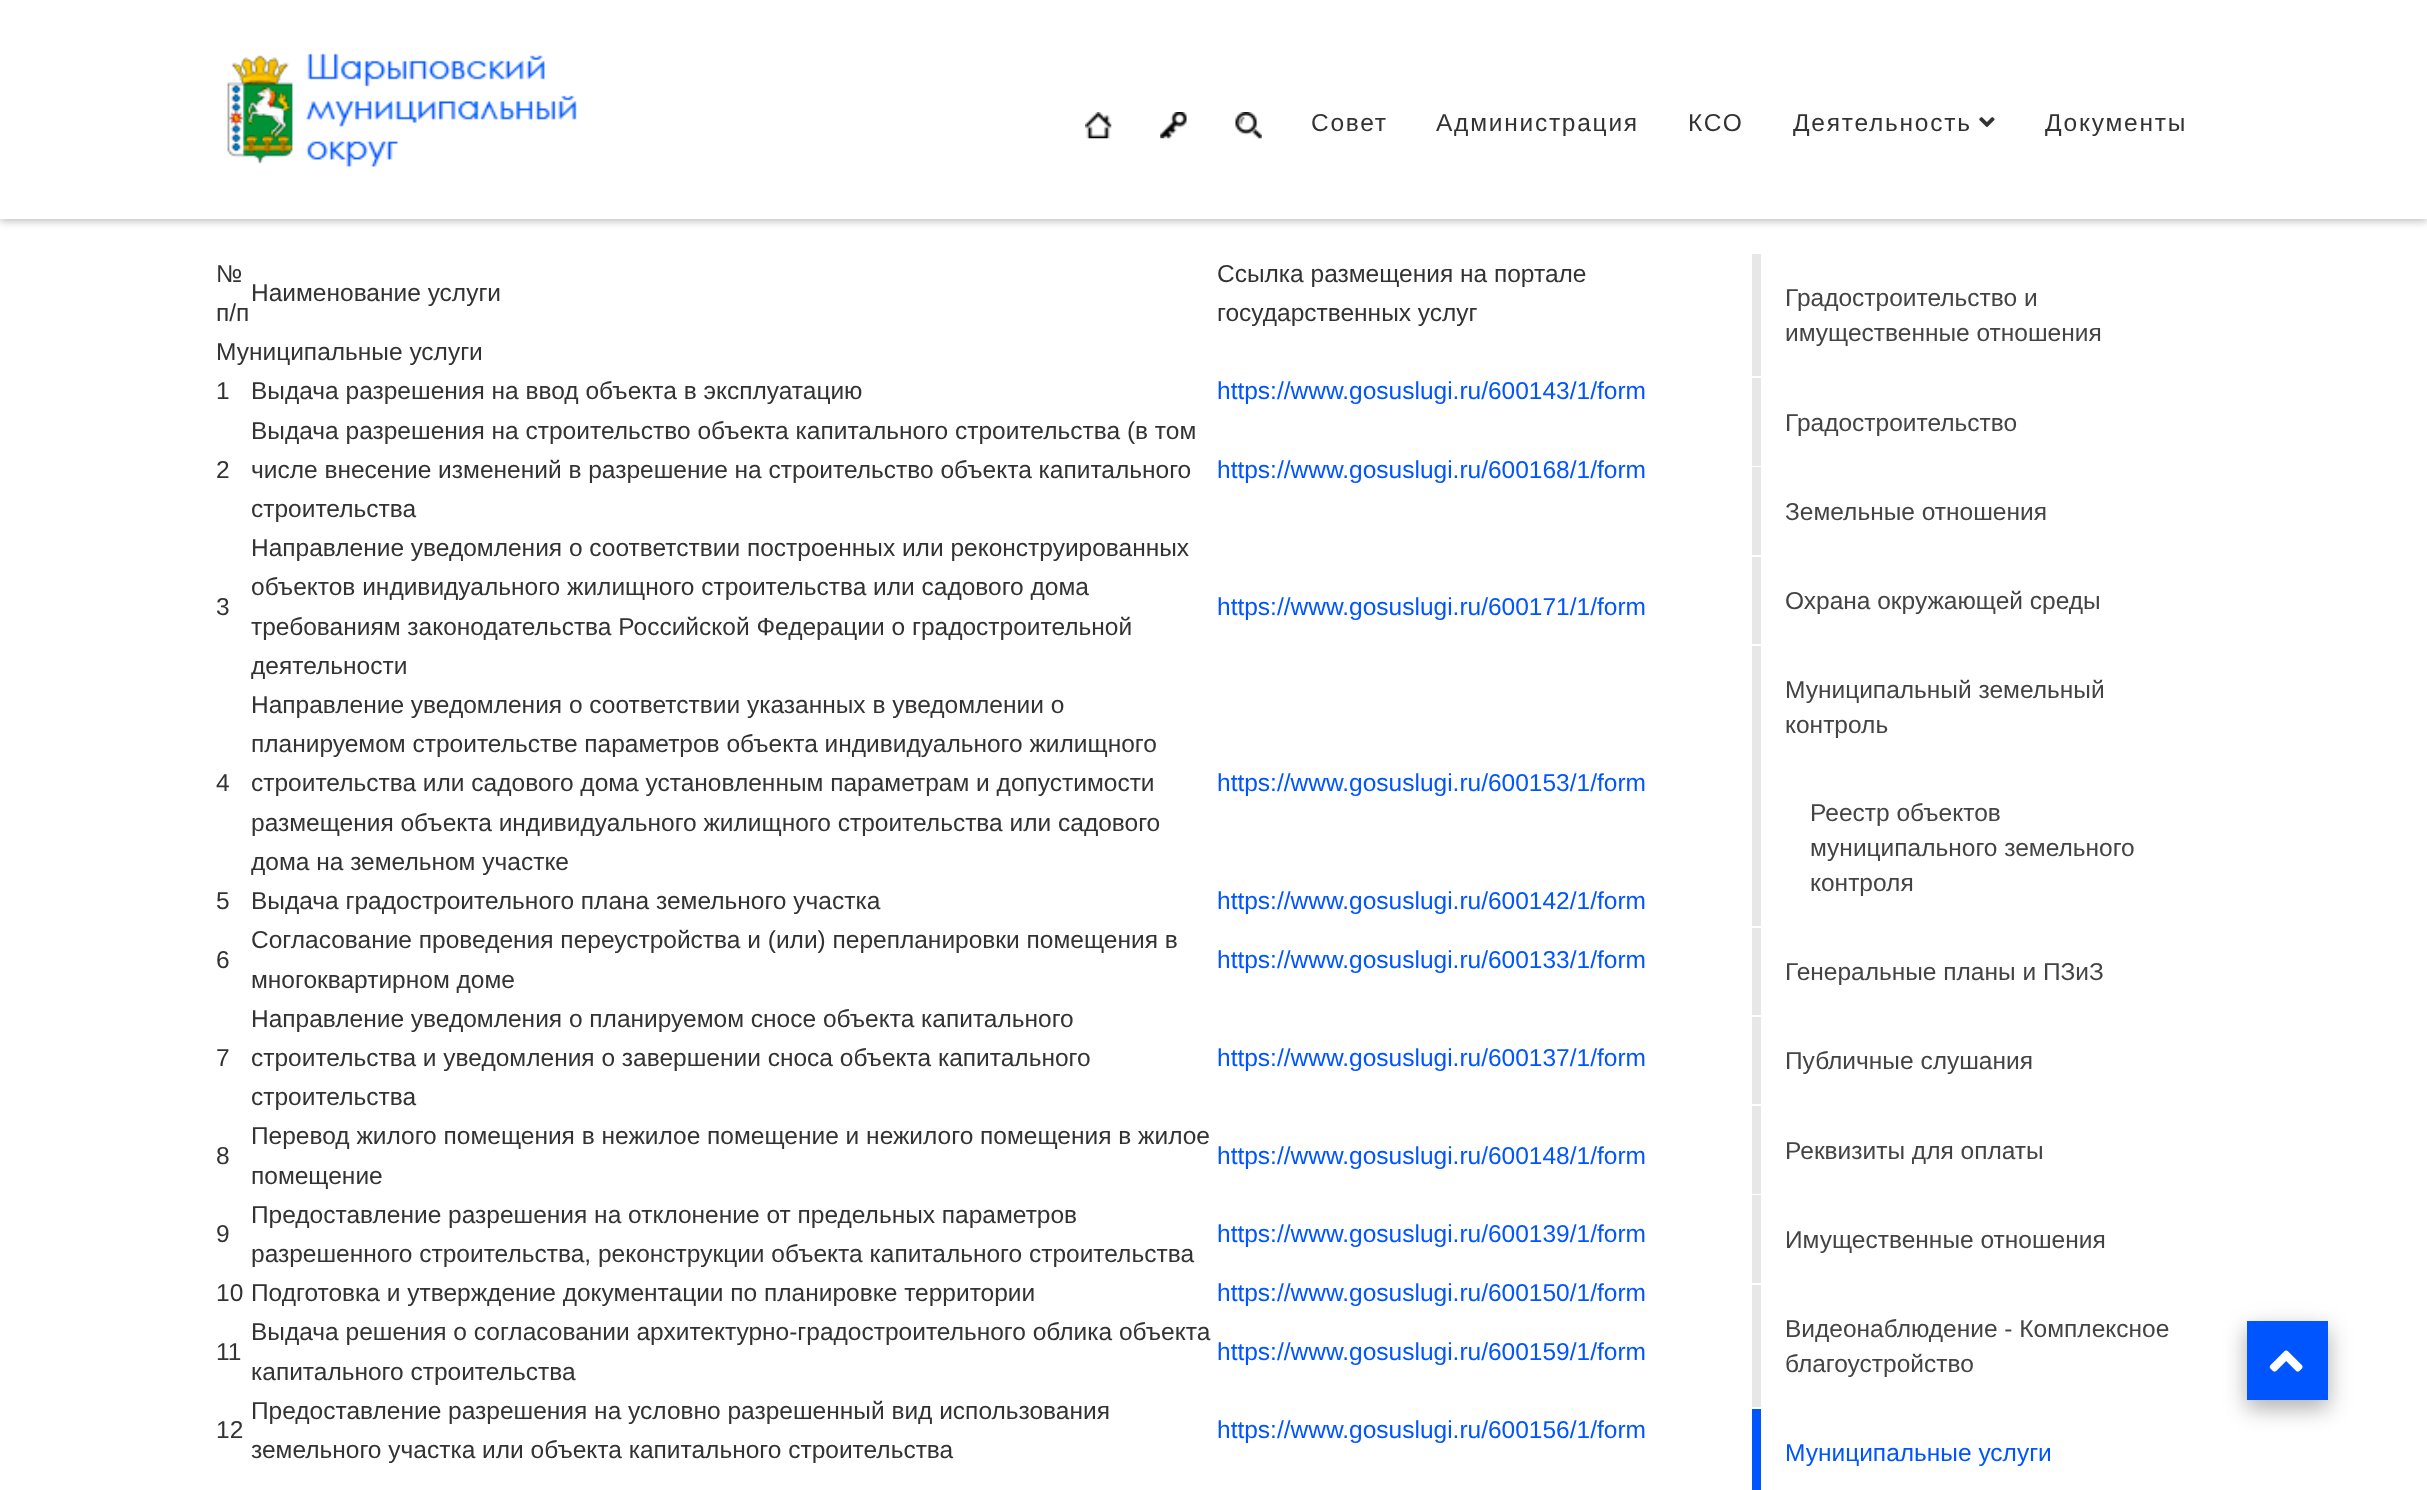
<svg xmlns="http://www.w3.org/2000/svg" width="2427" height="1490">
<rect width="100%" height="100%" fill="#fff"/>
<rect y="2" width="2427" height="219" fill="#00000045" filter="blur(4.5px)"/>
<rect width="2427" height="219" fill="#fff"/>
<image x="227" y="53" width="350" height="114" href="media/1.png"/>
<image x="1085" y="112" width="27" height="27" href="media/2.png"/>
<image x="1160" y="112" width="27" height="27" href="media/3.png"/>
<image x="1235" y="112" width="27" height="27" href="media/4.png"/>
<text x="1311" y="131" style="font-family:Liberation Sans;font-size:24.5px;letter-spacing:1.75px;fill:#333">Совет</text>
<text x="1436" y="131" style="font-family:Liberation Sans;font-size:24.5px;letter-spacing:1.75px;fill:#333">Администрация</text>
<text x="1688" y="131" style="font-family:Liberation Sans;font-size:24.5px;letter-spacing:1.75px;fill:#333">КСО</text>
<text x="1793" y="131" style="font-family:Liberation Sans;font-size:24.5px;letter-spacing:1.75px;fill:#333">Деятельность</text>
<image x="1979" y="117" width="16" height="10" href="media/5.png"/>
<text x="2045" y="131" style="font-family:Liberation Sans;font-size:24.5px;letter-spacing:1.75px;fill:#333">Документы</text>
<text x="216" y="282" style="font-family:Liberation Sans;font-size:24.5px;fill:#333">№</text>
<text x="216" y="321" style="font-family:Liberation Sans;font-size:24.5px;fill:#333">п/п</text>
<text x="251" y="301" style="font-family:Liberation Sans;font-size:24.5px;fill:#333">Наименование услуги</text>
<text x="1217" y="282" style="font-family:Liberation Sans;font-size:24.5px;fill:#333">Ссылка размещения на портале</text>
<text x="1217" y="321" style="font-family:Liberation Sans;font-size:24.5px;fill:#333">государственных услуг</text>
<text x="216" y="360" style="font-family:Liberation Sans;font-size:24.5px;fill:#333">Муниципальные услуги</text>
<text x="216" y="399" style="font-family:Liberation Sans;font-size:24.5px;fill:#333">1</text>
<text x="251" y="399" style="font-family:Liberation Sans;font-size:24.5px;fill:#333">Выдача разрешения на ввод объекта в эксплуатацию</text>
<text x="1217" y="399" style="font-family:Liberation Sans;font-size:24.5px;fill:#05f">https://www.gosuslugi.ru/600143/1/form</text>
<text x="216" y="478" style="font-family:Liberation Sans;font-size:24.5px;fill:#333">2</text>
<text x="251" y="439" style="font-family:Liberation Sans;font-size:24.5px;fill:#333">Выдача разрешения на строительство объекта капитального строительства (в том</text>
<text x="251" y="478" style="font-family:Liberation Sans;font-size:24.5px;fill:#333">числе внесение изменений в разрешение на строительство объекта капитального</text>
<text x="251" y="517" style="font-family:Liberation Sans;font-size:24.5px;fill:#333">строительства</text>
<text x="1217" y="478" style="font-family:Liberation Sans;font-size:24.5px;fill:#05f">https://www.gosuslugi.ru/600168/1/form</text>
<text x="216" y="615" style="font-family:Liberation Sans;font-size:24.5px;fill:#333">3</text>
<text x="251" y="556" style="font-family:Liberation Sans;font-size:24.5px;fill:#333">Направление уведомления о соответствии построенных или реконструированных</text>
<text x="251" y="595" style="font-family:Liberation Sans;font-size:24.5px;fill:#333">объектов индивидуального жилищного строительства или садового дома</text>
<text x="251" y="635" style="font-family:Liberation Sans;font-size:24.5px;fill:#333">требованиям законодательства Российской Федерации о градостроительной</text>
<text x="251" y="674" style="font-family:Liberation Sans;font-size:24.5px;fill:#333">деятельности</text>
<text x="1217" y="615" style="font-family:Liberation Sans;font-size:24.5px;fill:#05f">https://www.gosuslugi.ru/600171/1/form</text>
<text x="216" y="791" style="font-family:Liberation Sans;font-size:24.5px;fill:#333">4</text>
<text x="251" y="713" style="font-family:Liberation Sans;font-size:24.5px;fill:#333">Направление уведомления о соответствии указанных в уведомлении о</text>
<text x="251" y="752" style="font-family:Liberation Sans;font-size:24.5px;fill:#333">планируемом строительстве параметров объекта индивидуального жилищного</text>
<text x="251" y="791" style="font-family:Liberation Sans;font-size:24.5px;fill:#333">строительства или садового дома установленным параметрам и допустимости</text>
<text x="251" y="831" style="font-family:Liberation Sans;font-size:24.5px;fill:#333">размещения объекта индивидуального жилищного строительства или садового</text>
<text x="251" y="870" style="font-family:Liberation Sans;font-size:24.5px;fill:#333">дома на земельном участке</text>
<text x="1217" y="791" style="font-family:Liberation Sans;font-size:24.5px;fill:#05f">https://www.gosuslugi.ru/600153/1/form</text>
<text x="216" y="909" style="font-family:Liberation Sans;font-size:24.5px;fill:#333">5</text>
<text x="251" y="909" style="font-family:Liberation Sans;font-size:24.5px;fill:#333">Выдача градостроительного плана земельного участка</text>
<text x="1217" y="909" style="font-family:Liberation Sans;font-size:24.5px;fill:#05f">https://www.gosuslugi.ru/600142/1/form</text>
<text x="216" y="968" style="font-family:Liberation Sans;font-size:24.5px;fill:#333">6</text>
<text x="251" y="948" style="font-family:Liberation Sans;font-size:24.5px;fill:#333">Согласование проведения переустройства и (или) перепланировки помещения в</text>
<text x="251" y="988" style="font-family:Liberation Sans;font-size:24.5px;fill:#333">многоквартирном доме</text>
<text x="1217" y="968" style="font-family:Liberation Sans;font-size:24.5px;fill:#05f">https://www.gosuslugi.ru/600133/1/form</text>
<text x="216" y="1066" style="font-family:Liberation Sans;font-size:24.5px;fill:#333">7</text>
<text x="251" y="1027" style="font-family:Liberation Sans;font-size:24.5px;fill:#333">Направление уведомления о планируемом сносе объекта капитального</text>
<text x="251" y="1066" style="font-family:Liberation Sans;font-size:24.5px;fill:#333">строительства и уведомления о завершении сноса объекта капитального</text>
<text x="251" y="1105" style="font-family:Liberation Sans;font-size:24.5px;fill:#333">строительства</text>
<text x="1217" y="1066" style="font-family:Liberation Sans;font-size:24.5px;fill:#05f">https://www.gosuslugi.ru/600137/1/form</text>
<text x="216" y="1164" style="font-family:Liberation Sans;font-size:24.5px;fill:#333">8</text>
<text x="251" y="1144" style="font-family:Liberation Sans;font-size:24.5px;fill:#333">Перевод жилого помещения в нежилое помещение и нежилого помещения в жилое</text>
<text x="251" y="1184" style="font-family:Liberation Sans;font-size:24.5px;fill:#333">помещение</text>
<text x="1217" y="1164" style="font-family:Liberation Sans;font-size:24.5px;fill:#05f">https://www.gosuslugi.ru/600148/1/form</text>
<text x="216" y="1242" style="font-family:Liberation Sans;font-size:24.5px;fill:#333">9</text>
<text x="251" y="1223" style="font-family:Liberation Sans;font-size:24.5px;fill:#333">Предоставление разрешения на отклонение от предельных параметров</text>
<text x="251" y="1262" style="font-family:Liberation Sans;font-size:24.5px;fill:#333">разрешенного строительства, реконструкции объекта капитального строительства</text>
<text x="1217" y="1242" style="font-family:Liberation Sans;font-size:24.5px;fill:#05f">https://www.gosuslugi.ru/600139/1/form</text>
<text x="216" y="1301" style="font-family:Liberation Sans;font-size:24.5px;fill:#333">10</text>
<text x="251" y="1301" style="font-family:Liberation Sans;font-size:24.5px;fill:#333">Подготовка и утверждение документации по планировке территории</text>
<text x="1217" y="1301" style="font-family:Liberation Sans;font-size:24.5px;fill:#05f">https://www.gosuslugi.ru/600150/1/form</text>
<text x="216" y="1360" style="font-family:Liberation Sans;font-size:24.5px;fill:#333">11</text>
<text x="251" y="1340" style="font-family:Liberation Sans;font-size:24.5px;fill:#333">Выдача решения о согласовании архитектурно-градостроительного облика объекта</text>
<text x="251" y="1380" style="font-family:Liberation Sans;font-size:24.5px;fill:#333">капитального строительства</text>
<text x="1217" y="1360" style="font-family:Liberation Sans;font-size:24.5px;fill:#05f">https://www.gosuslugi.ru/600159/1/form</text>
<text x="216" y="1438" style="font-family:Liberation Sans;font-size:24.5px;fill:#333">12</text>
<text x="251" y="1419" style="font-family:Liberation Sans;font-size:24.5px;fill:#333">Предоставление разрешения на условно разрешенный вид использования</text>
<text x="251" y="1458" style="font-family:Liberation Sans;font-size:24.5px;fill:#333">земельного участка или объекта капитального строительства</text>
<text x="1217" y="1438" style="font-family:Liberation Sans;font-size:24.5px;fill:#05f">https://www.gosuslugi.ru/600156/1/form</text>
<rect x="1752" y="254" width="9" height="122" fill="#e7e7e7"/>
<text x="1785" y="306" style="font-family:Liberation Sans;font-size:24.5px;fill:#444">Градостроительство и</text>
<text x="1785" y="341" style="font-family:Liberation Sans;font-size:24.5px;fill:#444">имущественные отношения</text>
<rect x="1752" y="378" width="9" height="88" fill="#e7e7e7"/>
<text x="1785" y="431" style="font-family:Liberation Sans;font-size:24.5px;fill:#444">Градостроительство</text>
<rect x="1752" y="467" width="9" height="88" fill="#e7e7e7"/>
<text x="1785" y="520" style="font-family:Liberation Sans;font-size:24.5px;fill:#444">Земельные отношения</text>
<rect x="1752" y="557" width="9" height="87" fill="#e7e7e7"/>
<text x="1785" y="609" style="font-family:Liberation Sans;font-size:24.5px;fill:#444">Охрана окружающей среды</text>
<rect x="1752" y="646" width="9" height="280" fill="#e7e7e7"/>
<text x="1785" y="698" style="font-family:Liberation Sans;font-size:24.5px;fill:#444">Муниципальный земельный</text>
<text x="1785" y="733" style="font-family:Liberation Sans;font-size:24.5px;fill:#444">контроль</text>
<text x="1810" y="821" style="font-family:Liberation Sans;font-size:24.5px;fill:#444">Реестр объектов</text>
<text x="1810" y="856" style="font-family:Liberation Sans;font-size:24.5px;fill:#444">муниципального земельного</text>
<text x="1810" y="891" style="font-family:Liberation Sans;font-size:24.5px;fill:#444">контроля</text>
<rect x="1752" y="928" width="9" height="87" fill="#e7e7e7"/>
<text x="1785" y="980" style="font-family:Liberation Sans;font-size:24.5px;fill:#444">Генеральные планы и ПЗиЗ</text>
<rect x="1752" y="1017" width="9" height="87" fill="#e7e7e7"/>
<text x="1785" y="1069" style="font-family:Liberation Sans;font-size:24.5px;fill:#444">Публичные слушания</text>
<rect x="1752" y="1106" width="9" height="88" fill="#e7e7e7"/>
<text x="1785" y="1159" style="font-family:Liberation Sans;font-size:24.5px;fill:#444">Реквизиты для оплаты</text>
<rect x="1752" y="1195" width="9" height="88" fill="#e7e7e7"/>
<text x="1785" y="1248" style="font-family:Liberation Sans;font-size:24.5px;fill:#444">Имущественные отношения</text>
<rect x="1752" y="1285" width="9" height="122" fill="#e7e7e7"/>
<text x="1785" y="1337" style="font-family:Liberation Sans;font-size:24.5px;fill:#444">Видеонаблюдение - Комплексное</text>
<text x="1785" y="1372" style="font-family:Liberation Sans;font-size:24.5px;fill:#444">благоустройство</text>
<rect x="1752" y="1409" width="9" height="81" fill="#05f"/>
<text x="1785" y="1461" style="font-family:Liberation Sans;font-size:24.5px;fill:#05f">Муниципальные услуги</text>
<rect x="2247" y="1328" width="81" height="79" fill="#00000026" filter="blur(13px)"/>
<rect x="2247" y="1330" width="81" height="79" fill="#0000002e" filter="blur(9.5px)"/>
<rect x="2247" y="1321" width="81" height="79" fill="#05f"/>
<image x="2269" y="1350" width="34" height="22" href="media/6.png"/>
</svg>
